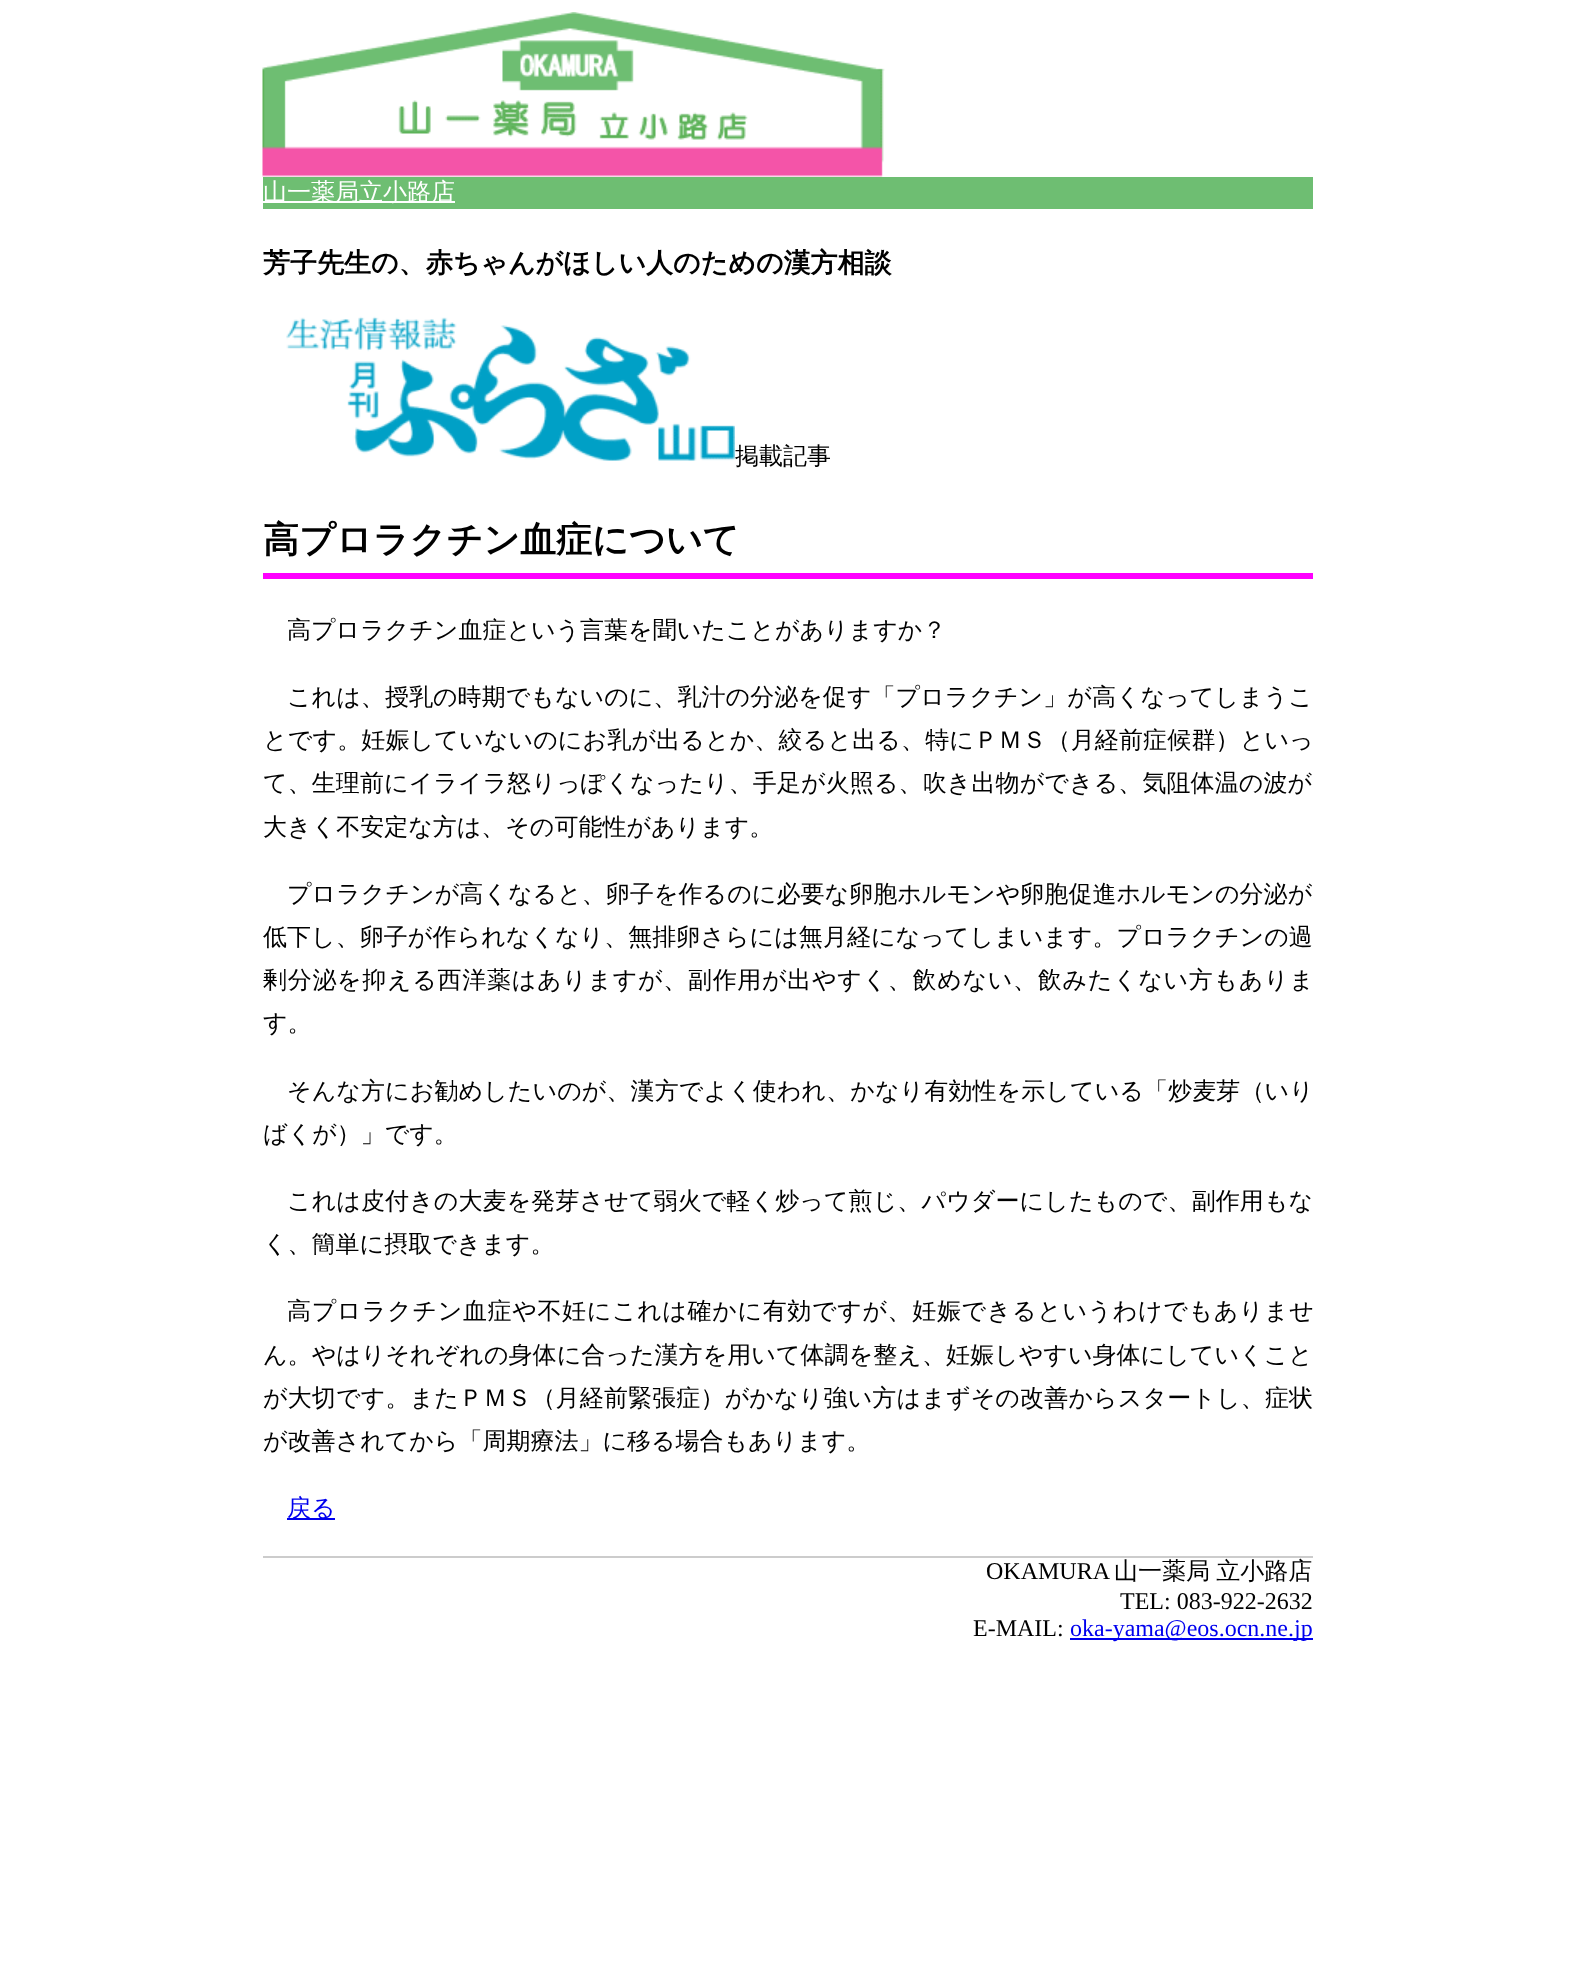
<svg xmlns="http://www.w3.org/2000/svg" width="1574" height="1975">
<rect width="100%" height="100%" fill="#fff"/>
<image x="262" y="12" width="623" height="165" href="media/1.png"/>
<rect x="263" y="177" width="1050" height="32" fill="#6ebe72"/>
<rect x="263" y="201" width="192" height="2" fill="#fff"/>
<text x="263" y="200" style="font-family:WenQuanYi Zen Hei;font-size:24px;font-weight:500;fill:#fff">山一薬局立小路店</text>
<text x="263" y="272" style="font-family:WenQuanYi Zen Hei;font-size:27px;font-weight:bold;fill:#000">芳子先生の、赤ちゃんがほしい人のための漢方相談</text>
<image x="286" y="316" width="449" height="145" href="media/2.png"/>
<text x="735" y="464" style="font-family:WenQuanYi Zen Hei;font-size:24px;font-weight:500;fill:#000">掲載記事</text>
<rect x="263" y="573" width="1050" height="6" fill="#f0f"/>
<text x="263" y="552" style="font-family:WenQuanYi Zen Hei;font-size:36px;font-weight:bold;fill:#000">高プロラクチン血症について</text>
<text x="287" y="638" style="font-family:WenQuanYi Zen Hei;font-size:24px;font-weight:500;fill:#000">高プロラクチン血症という言葉を聞いたことがありますか？</text>
<text x="287" y="705" style="font-family:WenQuanYi Zen Hei;font-size:24px;font-weight:500;letter-spacing:0.05px;fill:#000">これは、授乳の時期でもないのに、乳汁の分泌を促す「プロラクチン」が高くなってしまうこ</text>
<text x="263" y="748" style="font-family:WenQuanYi Zen Hei;font-size:24px;font-weight:500;letter-spacing:0.15px;fill:#000">とです。妊娠していないのにお乳が出るとか、絞ると出る、特にＰＭＳ（月経前症候群）といっ</text>
<text x="263" y="791" style="font-family:WenQuanYi Zen Hei;font-size:24px;font-weight:500;letter-spacing:0.1px;fill:#000">て、生理前にイライラ怒りっぽくなったり、手足が火照る、吹き出物ができる、気阻体温の波が</text>
<text x="263" y="835" style="font-family:WenQuanYi Zen Hei;font-size:24px;font-weight:500;fill:#000">大きく不安定な方は、その可能性があります。</text>
<text x="287" y="902" style="font-family:WenQuanYi Zen Hei;font-size:24px;font-weight:500;letter-spacing:0.05px;fill:#000">プロラクチンが高くなると、卵子を作るのに必要な卵胞ホルモンや卵胞促進ホルモンの分泌が</text>
<text x="263" y="945" style="font-family:WenQuanYi Zen Hei;font-size:24px;font-weight:500;letter-spacing:0.05px;fill:#000">低下し、卵子が作られなくなり、無排卵さらには無月経になってしまいます。プロラクチンの過</text>
<text x="263" y="988" style="font-family:WenQuanYi Zen Hei;font-size:24px;font-weight:500;letter-spacing:0.7px;fill:#000">剰分泌を抑える西洋薬はありますが、副作用が出やすく、飲めない、飲みたくない方もありま</text>
<text x="263" y="1031" style="font-family:WenQuanYi Zen Hei;font-size:24px;font-weight:500;fill:#000">す。</text>
<text x="287" y="1099" style="font-family:WenQuanYi Zen Hei;font-size:24px;font-weight:500;letter-spacing:0.1px;fill:#000">そんな方にお勧めしたいのが、漢方でよく使われ、かなり有効性を示している「炒麦芽（いり</text>
<text x="263" y="1142" style="font-family:WenQuanYi Zen Hei;font-size:24px;font-weight:500;fill:#000">ばくが）」です。</text>
<text x="287" y="1209" style="font-family:WenQuanYi Zen Hei;font-size:24px;font-weight:500;letter-spacing:0.1px;fill:#000">これは皮付きの大麦を発芽させて弱火で軽く炒って煎じ、パウダーにしたもので、副作用もな</text>
<text x="263" y="1252" style="font-family:WenQuanYi Zen Hei;font-size:24px;font-weight:500;fill:#000">く、簡単に摂取できます。</text>
<text x="287" y="1319" style="font-family:WenQuanYi Zen Hei;font-size:24px;font-weight:500;letter-spacing:0.65px;fill:#000">高プロラクチン血症や不妊にこれは確かに有効ですが、妊娠できるというわけでもありませ</text>
<text x="263" y="1363" style="font-family:WenQuanYi Zen Hei;font-size:24px;font-weight:500;letter-spacing:0.05px;fill:#000">ん。やはりそれぞれの身体に合った漢方を用いて体調を整え、妊娠しやすい身体にしていくこと</text>
<text x="263" y="1406" style="font-family:WenQuanYi Zen Hei;font-size:24px;font-weight:500;letter-spacing:0.15px;fill:#000">が大切です。またＰＭＳ（月経前緊張症）がかなり強い方はまずその改善からスタートし、症状</text>
<text x="263" y="1449" style="font-family:WenQuanYi Zen Hei;font-size:24px;font-weight:500;fill:#000">が改善されてから「周期療法」に移る場合もあります。</text>
<rect x="287" y="1518" width="48" height="2" fill="#00e"/>
<text x="287" y="1516" style="font-family:WenQuanYi Zen Hei;font-size:24px;font-weight:500;fill:#00e">戻る</text>
<rect x="263" y="1556" width="1050" height="2" fill="#ccc"/>
<text x="986" y="1579" style="font-family:Liberation Serif;font-size:24px;fill:#000">OKAMURA</text>
<text x="1114" y="1579" word-spacing="-1" style="font-family:WenQuanYi Zen Hei;font-size:24px;font-weight:500;fill:#000">山一薬局 立小路店</text>
<text x="1120" y="1609" style="font-family:Liberation Serif;font-size:24px;fill:#000">TEL: 083-922-2632</text>
<text x="973" y="1636" style="font-family:Liberation Serif;font-size:24px;fill:#000">E-MAIL:</text>
<rect x="1070" y="1638" width="243" height="2" fill="#00e"/>
<text x="1070" y="1636" style="font-family:Liberation Serif;font-size:24px;fill:#00e">oka-yama@eos.ocn.ne.jp</text>
</svg>
